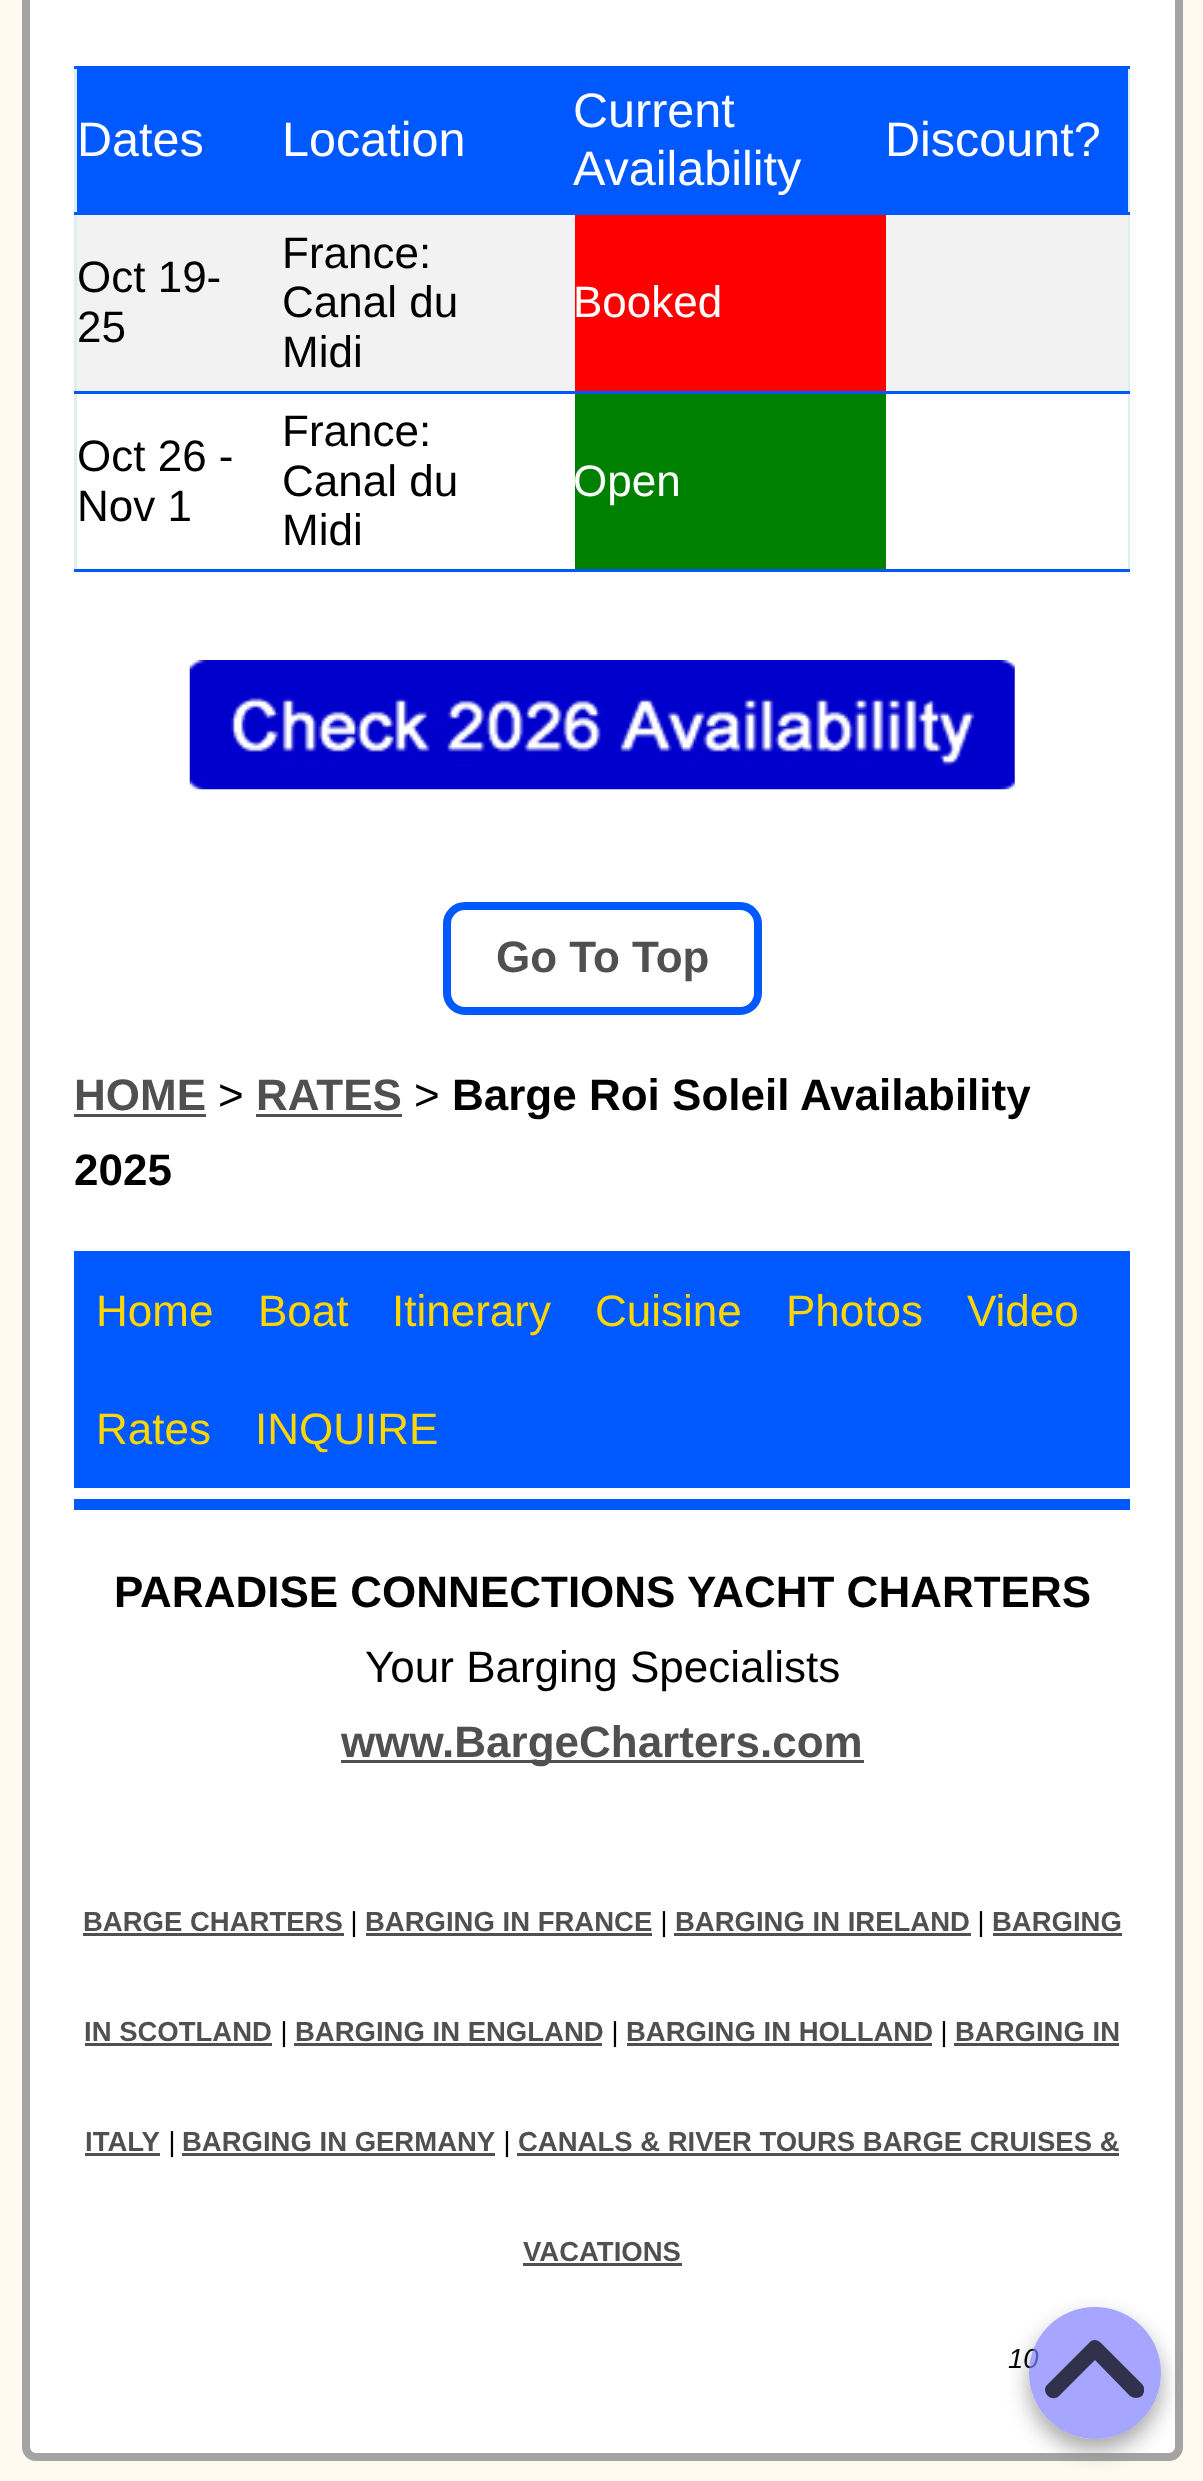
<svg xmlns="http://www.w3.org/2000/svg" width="1203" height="2481">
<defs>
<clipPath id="clip1"><path d="M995 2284h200v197h-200zm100 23c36.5 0 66 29.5 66 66c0 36.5-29.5 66-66 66c-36.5 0-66-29.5-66-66c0-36.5 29.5-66 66-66z" clip-rule="evenodd"/></clipPath>
<clipPath id="clip2"><rect x="1045" y="2307" width="99" height="132"/></clipPath>
</defs>
<rect width="100%" height="100%" fill="#fffaf0"/>
<rect x="26" y="-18" width="1153" height="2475" rx="10" fill="#fff" stroke="#a4a4a4" stroke-width="8"/>
<rect x="1128" y="66" width="2" height="506" fill="#dee"/>
<rect x="74" y="66" width="3" height="506" fill="#dee"/>
<rect x="77" y="69" width="206" height="143" fill="#0059ff"/>
<text x="77" y="156" style="font-family:Liberation Sans;font-size:48.5px;fill:#fff">Dates</text>
<rect x="283" y="69" width="603" height="146" fill="#0059ff"/>
<text x="282" y="156" style="font-family:Liberation Sans;font-size:48.5px;fill:#fff">Location</text>
<text x="573" y="127" style="font-family:Liberation Sans;font-size:48.5px;fill:#fff">Current</text>
<text x="573" y="185" style="font-family:Liberation Sans;font-size:48.5px;fill:#fff">Availability</text>
<rect x="886" y="69" width="242" height="143" fill="#0059ff"/>
<rect x="74" y="66" width="1056" height="3" fill="#0059ff"/>
<text x="885" y="156" style="font-family:Liberation Sans;font-size:48.5px;fill:#fff">Discount?</text>
<rect x="77" y="215" width="1051" height="176" fill="#f2f2f2"/>
<rect x="883" y="212" width="247" height="3" fill="#0059ff"/>
<rect x="74" y="212" width="209" height="3" fill="#0059ff"/>
<text x="77" y="292" style="font-family:Liberation Sans;font-size:44px;fill:#000">Oct 19-</text>
<text x="77" y="342" style="font-family:Liberation Sans;font-size:44px;fill:#000">25</text>
<text x="282" y="268" style="font-family:Liberation Sans;font-size:44px;fill:#000">France:</text>
<text x="282" y="317" style="font-family:Liberation Sans;font-size:44px;fill:#000">Canal du</text>
<text x="282" y="367" style="font-family:Liberation Sans;font-size:44px;fill:#000">Midi</text>
<rect x="575" y="215" width="311" height="176" fill="#f00"/>
<text x="573" y="317" style="font-family:Liberation Sans;font-size:44px;fill:#fff">Booked</text>
<rect x="74" y="391" width="1056" height="3" fill="#0059ff"/>
<rect x="74" y="569" width="1056" height="3" fill="#0059ff"/>
<text x="77" y="471" style="font-family:Liberation Sans;font-size:44px;fill:#000">Oct 26 -</text>
<text x="77" y="521" style="font-family:Liberation Sans;font-size:44px;fill:#000">Nov 1</text>
<text x="282" y="446" style="font-family:Liberation Sans;font-size:44px;fill:#000">France:</text>
<text x="282" y="496" style="font-family:Liberation Sans;font-size:44px;fill:#000">Canal du</text>
<text x="282" y="545" style="font-family:Liberation Sans;font-size:44px;fill:#000">Midi</text>
<rect x="575" y="394" width="311" height="175" fill="#008000"/>
<text x="573" y="496" style="font-family:Liberation Sans;font-size:44px;fill:#fff">Open</text>
<image x="189" y="660" width="826" height="130" href="media/1.png"/>
<rect x="447" y="906" width="311" height="105" rx="18" fill="none" stroke="#0059ff" stroke-width="8"/>
<text x="496" y="972" style="font-family:Liberation Sans;font-size:44px;font-weight:bold;fill:#505050">Go To Top</text>
<text x="74" y="1110" style="font-family:Liberation Sans;font-size:44px;font-weight:bold;fill:#505050">HOME</text>
<rect x="74" y="1114" width="132" height="3" fill="#505050"/>
<text x="218" y="1110" style="font-family:Liberation Sans;font-size:44px;fill:#000">&gt;</text>
<text x="256" y="1110" style="font-family:Liberation Sans;font-size:44px;font-weight:bold;fill:#505050">RATES</text>
<rect x="256" y="1114" width="146" height="3" fill="#505050"/>
<text x="414" y="1110" style="font-family:Liberation Sans;font-size:44px;fill:#000">&gt;</text>
<text x="452" y="1110" style="font-family:Liberation Sans;font-size:44px;font-weight:bold;fill:#000">Barge Roi Soleil Availability</text>
<text x="74" y="1185" style="font-family:Liberation Sans;font-size:44px;font-weight:bold;fill:#000">2025</text>
<rect x="74" y="1251" width="1056" height="237" fill="#0059ff"/>
<text x="96" y="1326" style="font-family:Liberation Sans;font-size:44px;fill:#ffd700">Home</text>
<text x="258" y="1326" style="font-family:Liberation Sans;font-size:44px;fill:#ffd700">Boat</text>
<text x="392" y="1326" style="font-family:Liberation Sans;font-size:44px;fill:#ffd700">Itinerary</text>
<text x="595" y="1326" style="font-family:Liberation Sans;font-size:44px;fill:#ffd700">Cuisine</text>
<text x="786" y="1326" style="font-family:Liberation Sans;font-size:44px;fill:#ffd700">Photos</text>
<text x="967" y="1326" style="font-family:Liberation Sans;font-size:44px;fill:#ffd700">Video</text>
<text x="96" y="1444" style="font-family:Liberation Sans;font-size:44px;fill:#ffd700">Rates</text>
<text x="255" y="1444" style="font-family:Liberation Sans;font-size:44px;fill:#ffd700">INQUIRE</text>
<rect x="74" y="1499" width="1056" height="11" fill="#0059ff"/>
<text x="114" y="1607" style="font-family:Liberation Sans;font-size:44px;font-weight:bold;fill:#000">PARADISE CONNECTIONS YACHT CHARTERS</text>
<text x="365" y="1682" style="font-family:Liberation Sans;font-size:44px;fill:#000">Your Barging Specialists</text>
<rect x="341" y="1760" width="523" height="3" fill="#505050"/>
<text x="341" y="1757" style="font-family:Liberation Sans;font-size:44px;font-weight:bold;fill:#505050">www.BargeCharters.com</text>
<text x="83" y="1931" style="font-family:Liberation Sans;font-size:27.5px;font-weight:bold;fill:#505050">BARGE CHARTERS</text>
<rect x="83" y="1933" width="261" height="3" fill="#505050"/>
<text x="350" y="1931" style="font-family:Liberation Sans;font-size:27.5px;font-style:italic;fill:#000">|</text>
<text x="365" y="1931" style="font-family:Liberation Sans;font-size:27.5px;font-weight:bold;fill:#505050">BARGING IN FRANCE</text>
<rect x="366" y="1933" width="286" height="3" fill="#505050"/>
<text x="660" y="1931" style="font-family:Liberation Sans;font-size:27.5px;font-style:italic;fill:#000">|</text>
<text x="675" y="1931" style="font-family:Liberation Sans;font-size:27.5px;font-weight:bold;fill:#505050">BARGING IN IRELAND</text>
<rect x="674" y="1933" width="297" height="3" fill="#505050"/>
<text x="977" y="1931" style="font-family:Liberation Sans;font-size:27.5px;font-style:italic;fill:#000">|</text>
<text x="992" y="1931" style="font-family:Liberation Sans;font-size:27.5px;font-weight:bold;fill:#505050">BARGING</text>
<rect x="993" y="1933" width="129" height="3" fill="#505050"/>
<text x="84" y="2041" style="font-family:Liberation Sans;font-size:27.5px;font-weight:bold;fill:#505050">IN SCOTLAND</text>
<rect x="85" y="2043" width="187" height="3" fill="#505050"/>
<text x="280" y="2041" style="font-family:Liberation Sans;font-size:27.5px;font-style:italic;fill:#000">|</text>
<text x="295" y="2041" style="font-family:Liberation Sans;font-size:27.5px;font-weight:bold;fill:#505050">BARGING IN ENGLAND</text>
<rect x="294" y="2043" width="308" height="3" fill="#505050"/>
<text x="611" y="2041" style="font-family:Liberation Sans;font-size:27.5px;font-style:italic;fill:#000">|</text>
<text x="626" y="2041" style="font-family:Liberation Sans;font-size:27.5px;font-weight:bold;fill:#505050">BARGING IN HOLLAND</text>
<rect x="627" y="2043" width="305" height="3" fill="#505050"/>
<text x="940" y="2041" style="font-family:Liberation Sans;font-size:27.5px;font-style:italic;fill:#000">|</text>
<text x="955" y="2041" style="font-family:Liberation Sans;font-size:27.5px;font-weight:bold;fill:#505050">BARGING IN</text>
<rect x="954" y="2043" width="165" height="3" fill="#505050"/>
<text x="85" y="2151" style="font-family:Liberation Sans;font-size:27.5px;font-weight:bold;fill:#505050">ITALY</text>
<rect x="85" y="2153" width="75" height="3" fill="#505050"/>
<text x="168" y="2151" style="font-family:Liberation Sans;font-size:27.5px;font-style:italic;fill:#000">|</text>
<text x="182" y="2151" style="font-family:Liberation Sans;font-size:27.5px;font-weight:bold;fill:#505050">BARGING IN GERMANY</text>
<rect x="182" y="2153" width="313" height="3" fill="#505050"/>
<text x="503" y="2151" style="font-family:Liberation Sans;font-size:27.5px;font-style:italic;fill:#000">|</text>
<text x="518" y="2151" style="font-family:Liberation Sans;font-size:27.5px;font-weight:bold;fill:#505050">CANALS &amp; RIVER TOURS BARGE CRUISES &amp;</text>
<rect x="517" y="2153" width="602" height="3" fill="#505050"/>
<text x="523" y="2261" style="font-family:Liberation Sans;font-size:27.5px;font-weight:bold;fill:#505050">VACATIONS</text>
<rect x="523" y="2263" width="159" height="3" fill="#505050"/>
<g clip-path="url(#clip1)">
<rect x="1029" y="2318" width="132" height="132" rx="66" fill="#808080b3" filter="blur(11px)"/>
</g>
<text x="1008" y="2368" style="font-family:Liberation Sans;font-size:27.5px;font-style:italic;fill:#000">10</text>
<circle cx="1095" cy="2373" r="66" fill="#8080ffb3"/>
<g clip-path="url(#clip2)">
<path d="M1136 2398c-2 0-4-1-6-2l-35-36l-36 36c-3 3-8 3-11 0c-4-4-4-9 0-12l41-41c3-4 8-4 12 0l41 41c3 3 3 8 0 12c-2 1-4 2-6 2z" fill="#000000b3"/>
</g>
</svg>
